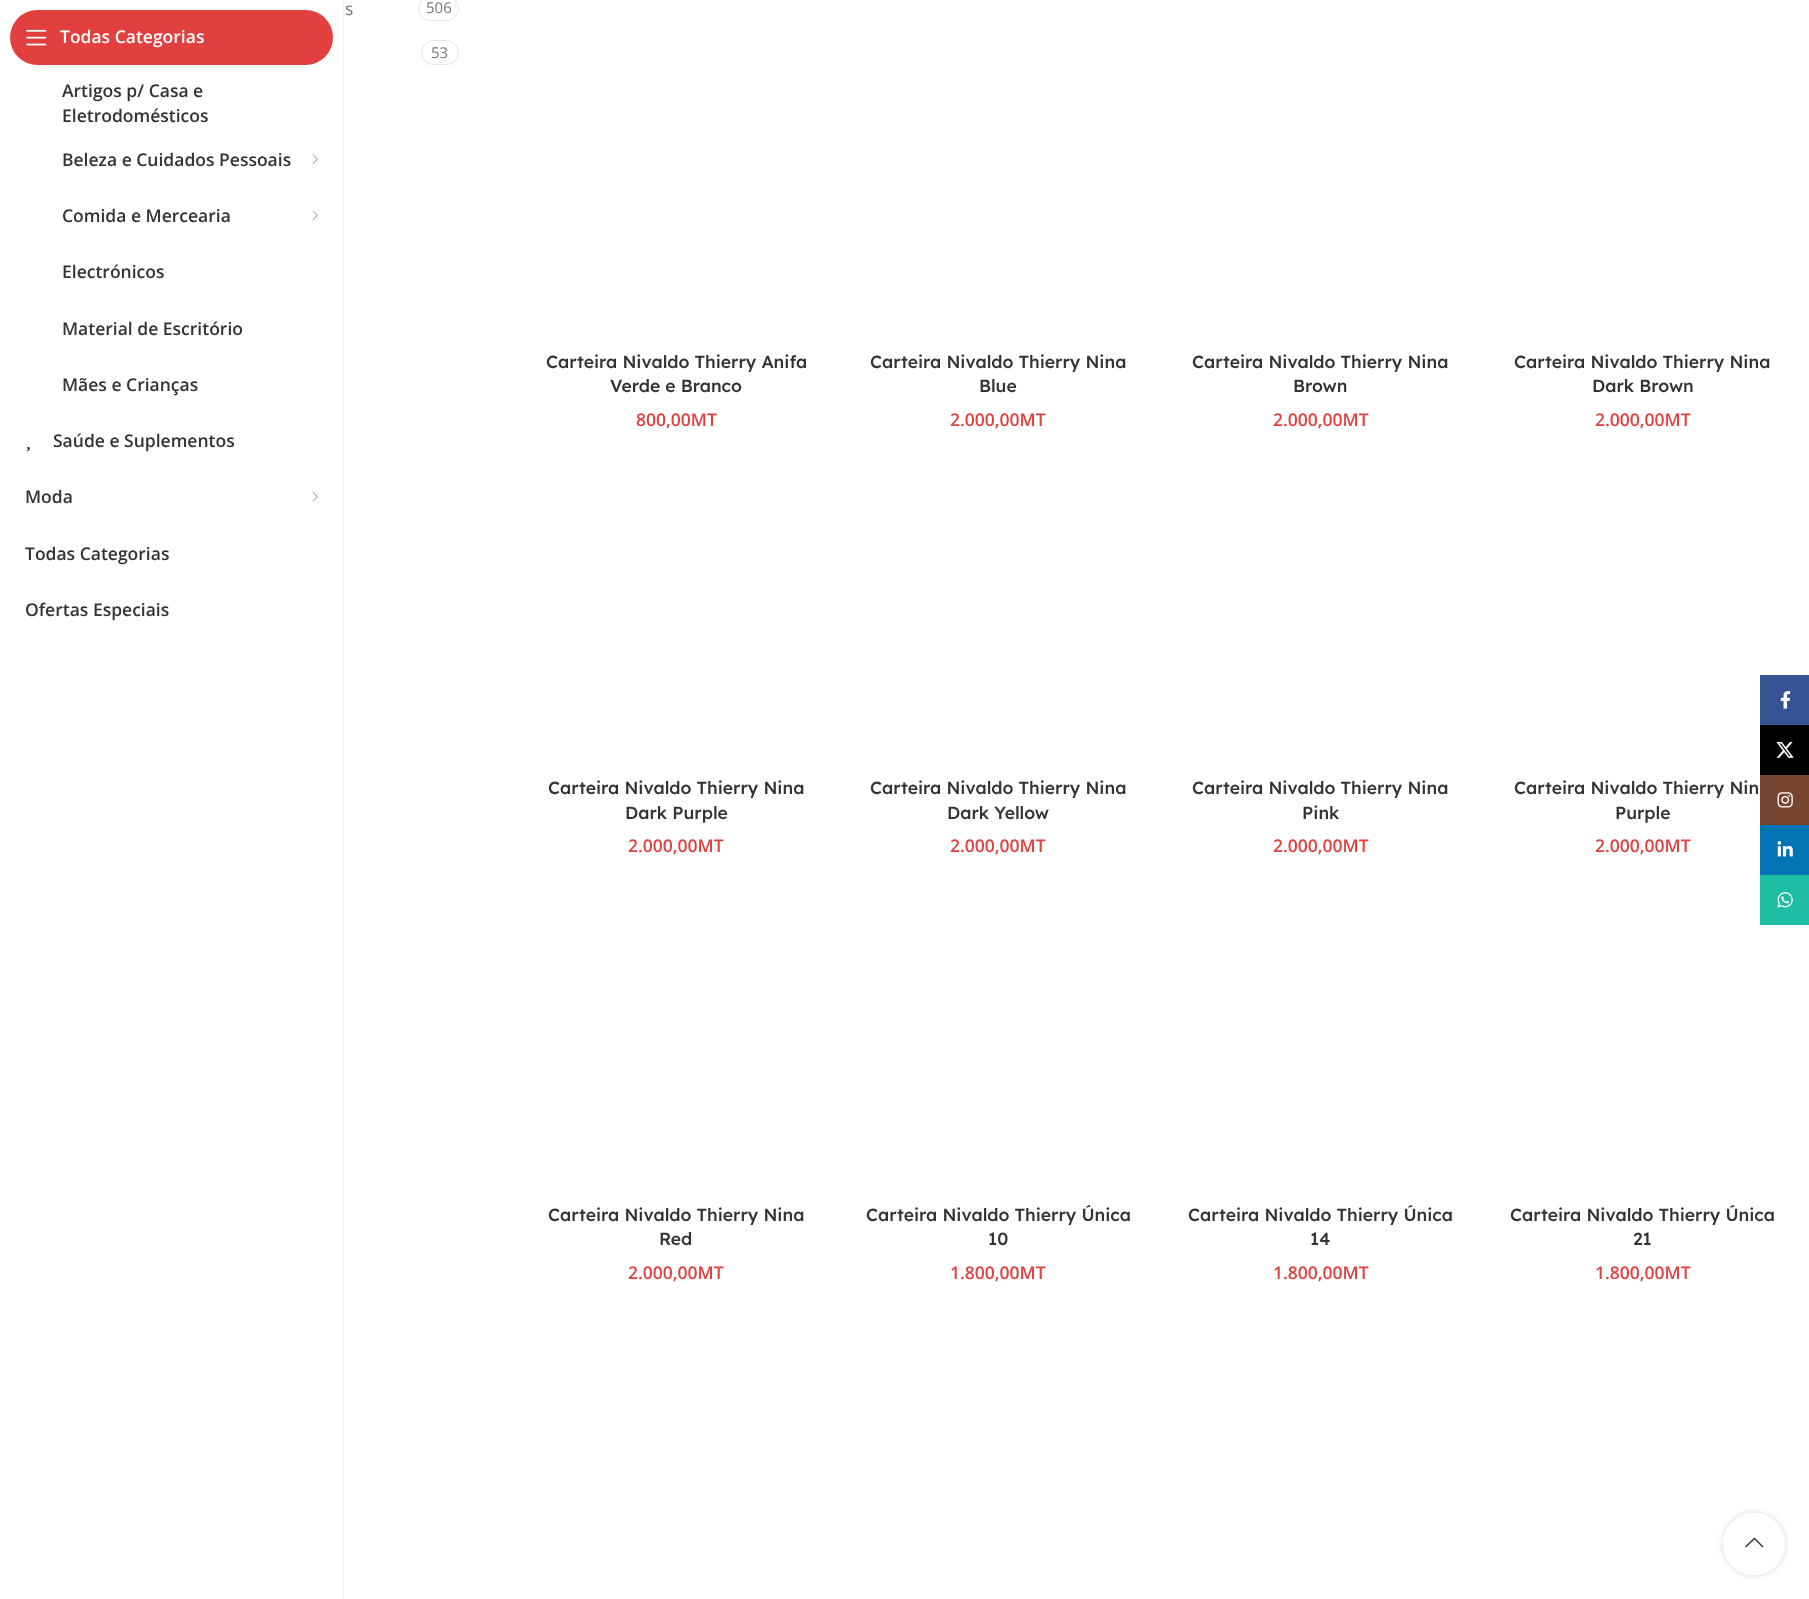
<svg xmlns="http://www.w3.org/2000/svg" width="1809" height="1599">
<defs>
<clipPath id="clip1"><path d="M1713 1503h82v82h-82zm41 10c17 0 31 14 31 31c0 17-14 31-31 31c-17 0-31-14-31-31c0-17 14-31 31-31z" clip-rule="evenodd"/></clipPath>
</defs>
<rect width="100%" height="100%" fill="#fff"/>
<rect x="343" width="1" height="1599" fill="#efefef"/>
<rect x="10" y="10" width="323" height="55" rx="27.5" fill="#e23f3f"/>
<image x="26" y="29" width="21" height="17" href="media/1.png"/>
<text x="60" y="43" style="font-family:Open Sans;font-size:17.5px;font-weight:600;fill:#fff">Todas Categorias</text>
<text x="62" y="97" style="font-family:Open Sans;font-size:17.5px;font-weight:600;fill:#333">Artigos p/ Casa e</text>
<text x="62" y="122" style="font-family:Open Sans;font-size:17.5px;font-weight:600;fill:#333">Eletrodomésticos</text>
<text x="62" y="166" style="font-family:Open Sans;font-size:17.5px;font-weight:600;fill:#333">Beleza e Cuidados Pessoais</text>
<image x="312" y="154" width="6" height="10" href="media/2.png"/>
<text x="62" y="222" style="font-family:Open Sans;font-size:17.5px;font-weight:600;fill:#333">Comida e Mercearia</text>
<image x="312" y="210" width="6" height="11" href="media/3.png"/>
<text x="62" y="278" style="font-family:Open Sans;font-size:17.5px;font-weight:600;fill:#333">Electrónicos</text>
<text x="62" y="335" style="font-family:Open Sans;font-size:17.5px;font-weight:600;fill:#333">Material de Escritório</text>
<text x="62" y="391" style="font-family:Open Sans;font-size:17.5px;font-weight:600;fill:#333">Mães e Crianças</text>
<image x="26" y="447" width="4" height="5" href="media/4.png"/>
<text x="53" y="447" style="font-family:Open Sans;font-size:17.5px;font-weight:600;fill:#333">Saúde e Suplementos</text>
<text x="25" y="503" style="font-family:Open Sans;font-size:17.5px;font-weight:600;fill:#333">Moda</text>
<image x="312" y="491" width="6" height="11" href="media/5.png"/>
<text x="25" y="560" style="font-family:Open Sans;font-size:17.5px;font-weight:600;fill:#333">Todas Categorias</text>
<text x="25" y="616" style="font-family:Open Sans;font-size:17.5px;font-weight:600;fill:#333">Ofertas Especiais</text>
<text x="345" y="15" style="font-family:Open Sans;font-size:17.5px;fill:#767676">s</text>
<rect x="418.5" y="-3.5" width="40" height="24" rx="12" fill="none" stroke="#e4e4e4"/>
<text x="426" y="13" style="font-family:Open Sans;font-size:15px;fill:#767676">506</text>
<rect x="421.5" y="40.5" width="37" height="24" rx="12" fill="none" stroke="#e4e4e4"/>
<text x="431" y="58" style="font-family:Open Sans;font-size:15px;fill:#767676">53</text>
<text x="546" y="368" style="font-family:Lexend Deca;font-size:17.5px;font-weight:500;fill:#333">Carteira Nivaldo Thierry Anifa</text>
<text x="610" y="392" style="font-family:Lexend Deca;font-size:17.5px;font-weight:500;fill:#333">Verde e Branco</text>
<text x="636" y="426" style="font-family:Open Sans;font-size:17.5px;font-weight:600;fill:#e23f3f">800,00MT</text>
<text x="870" y="368" style="font-family:Lexend Deca;font-size:17.5px;font-weight:500;fill:#333">Carteira Nivaldo Thierry Nina</text>
<text x="979" y="392" style="font-family:Lexend Deca;font-size:17.5px;font-weight:500;fill:#333">Blue</text>
<text x="950" y="426" style="font-family:Open Sans;font-size:17.5px;font-weight:600;fill:#e23f3f">2.000,00MT</text>
<text x="1192" y="368" style="font-family:Lexend Deca;font-size:17.5px;font-weight:500;fill:#333">Carteira Nivaldo Thierry Nina</text>
<text x="1293" y="392" style="font-family:Lexend Deca;font-size:17.5px;font-weight:500;fill:#333">Brown</text>
<text x="1273" y="426" style="font-family:Open Sans;font-size:17.5px;font-weight:600;fill:#e23f3f">2.000,00MT</text>
<text x="1514" y="368" style="font-family:Lexend Deca;font-size:17.5px;font-weight:500;fill:#333">Carteira Nivaldo Thierry Nina</text>
<text x="1592" y="392" style="font-family:Lexend Deca;font-size:17.5px;font-weight:500;fill:#333">Dark Brown</text>
<text x="1595" y="426" style="font-family:Open Sans;font-size:17.5px;font-weight:600;fill:#e23f3f">2.000,00MT</text>
<text x="548" y="794" style="font-family:Lexend Deca;font-size:17.5px;font-weight:500;fill:#333">Carteira Nivaldo Thierry Nina</text>
<text x="625" y="819" style="font-family:Lexend Deca;font-size:17.5px;font-weight:500;fill:#333">Dark Purple</text>
<text x="628" y="852" style="font-family:Open Sans;font-size:17.5px;font-weight:600;fill:#e23f3f">2.000,00MT</text>
<text x="870" y="794" style="font-family:Lexend Deca;font-size:17.5px;font-weight:500;fill:#333">Carteira Nivaldo Thierry Nina</text>
<text x="947" y="819" style="font-family:Lexend Deca;font-size:17.5px;font-weight:500;fill:#333">Dark Yellow</text>
<text x="950" y="852" style="font-family:Open Sans;font-size:17.5px;font-weight:600;fill:#e23f3f">2.000,00MT</text>
<text x="1192" y="794" style="font-family:Lexend Deca;font-size:17.5px;font-weight:500;fill:#333">Carteira Nivaldo Thierry Nina</text>
<text x="1302" y="819" style="font-family:Lexend Deca;font-size:17.5px;font-weight:500;fill:#333">Pink</text>
<text x="1273" y="852" style="font-family:Open Sans;font-size:17.5px;font-weight:600;fill:#e23f3f">2.000,00MT</text>
<text x="1514" y="794" style="font-family:Lexend Deca;font-size:17.5px;font-weight:500;fill:#333">Carteira Nivaldo Thierry Nin</text>
<text x="1615" y="819" style="font-family:Lexend Deca;font-size:17.5px;font-weight:500;fill:#333">Purple</text>
<text x="1595" y="852" style="font-family:Open Sans;font-size:17.5px;font-weight:600;fill:#e23f3f">2.000,00MT</text>
<text x="548" y="1221" style="font-family:Lexend Deca;font-size:17.5px;font-weight:500;fill:#333">Carteira Nivaldo Thierry Nina</text>
<text x="659" y="1245" style="font-family:Lexend Deca;font-size:17.5px;font-weight:500;fill:#333">Red</text>
<text x="628" y="1279" style="font-family:Open Sans;font-size:17.5px;font-weight:600;fill:#e23f3f">2.000,00MT</text>
<text x="866" y="1221" style="font-family:Lexend Deca;font-size:17.5px;font-weight:500;fill:#333">Carteira Nivaldo Thierry Única</text>
<text x="988" y="1245" style="font-family:Lexend Deca;font-size:17.5px;font-weight:500;fill:#333">10</text>
<text x="950" y="1279" style="font-family:Open Sans;font-size:17.5px;font-weight:600;fill:#e23f3f">1.800,00MT</text>
<text x="1188" y="1221" style="font-family:Lexend Deca;font-size:17.5px;font-weight:500;fill:#333">Carteira Nivaldo Thierry Única</text>
<text x="1310" y="1245" style="font-family:Lexend Deca;font-size:17.5px;font-weight:500;fill:#333">14</text>
<text x="1273" y="1279" style="font-family:Open Sans;font-size:17.5px;font-weight:600;fill:#e23f3f">1.800,00MT</text>
<text x="1510" y="1221" style="font-family:Lexend Deca;font-size:17.5px;font-weight:500;fill:#333">Carteira Nivaldo Thierry Única</text>
<text x="1633" y="1245" style="font-family:Lexend Deca;font-size:17.5px;font-weight:500;fill:#333">21</text>
<text x="1595" y="1279" style="font-family:Open Sans;font-size:17.5px;font-weight:600;fill:#e23f3f">1.800,00MT</text>
<rect x="1760" y="675" width="49" height="50" fill="#365493"/>
<image x="1780" y="691" width="11" height="18" href="media/6.png"/>
<rect x="1760" y="725" width="49" height="50" fill="#000"/>
<image x="1776" y="741" width="18" height="17" href="media/7.png"/>
<rect x="1760" y="775" width="49" height="50" fill="#774430"/>
<image x="1777" y="792" width="16" height="16" href="media/8.png"/>
<rect x="1760" y="825" width="49" height="50" fill="#0274b3"/>
<image x="1777" y="841" width="16" height="16" href="media/9.png"/>
<rect x="1760" y="875" width="49" height="50" fill="#1ebea5"/>
<image x="1777" y="892" width="16" height="16" href="media/10.png"/>
<g clip-path="url(#clip1)">
<rect x="1723" y="1513" width="62" height="62" rx="31" fill="#0000002b" filter="blur(3px)"/>
</g>
<circle cx="1754" cy="1544" r="31" fill="#ffffffe6"/>
<path d="M1762.5 1547.5l1-1l-9-9l-9.5 9l1 1l8.5-8z" fill="#333"/>
</svg>
